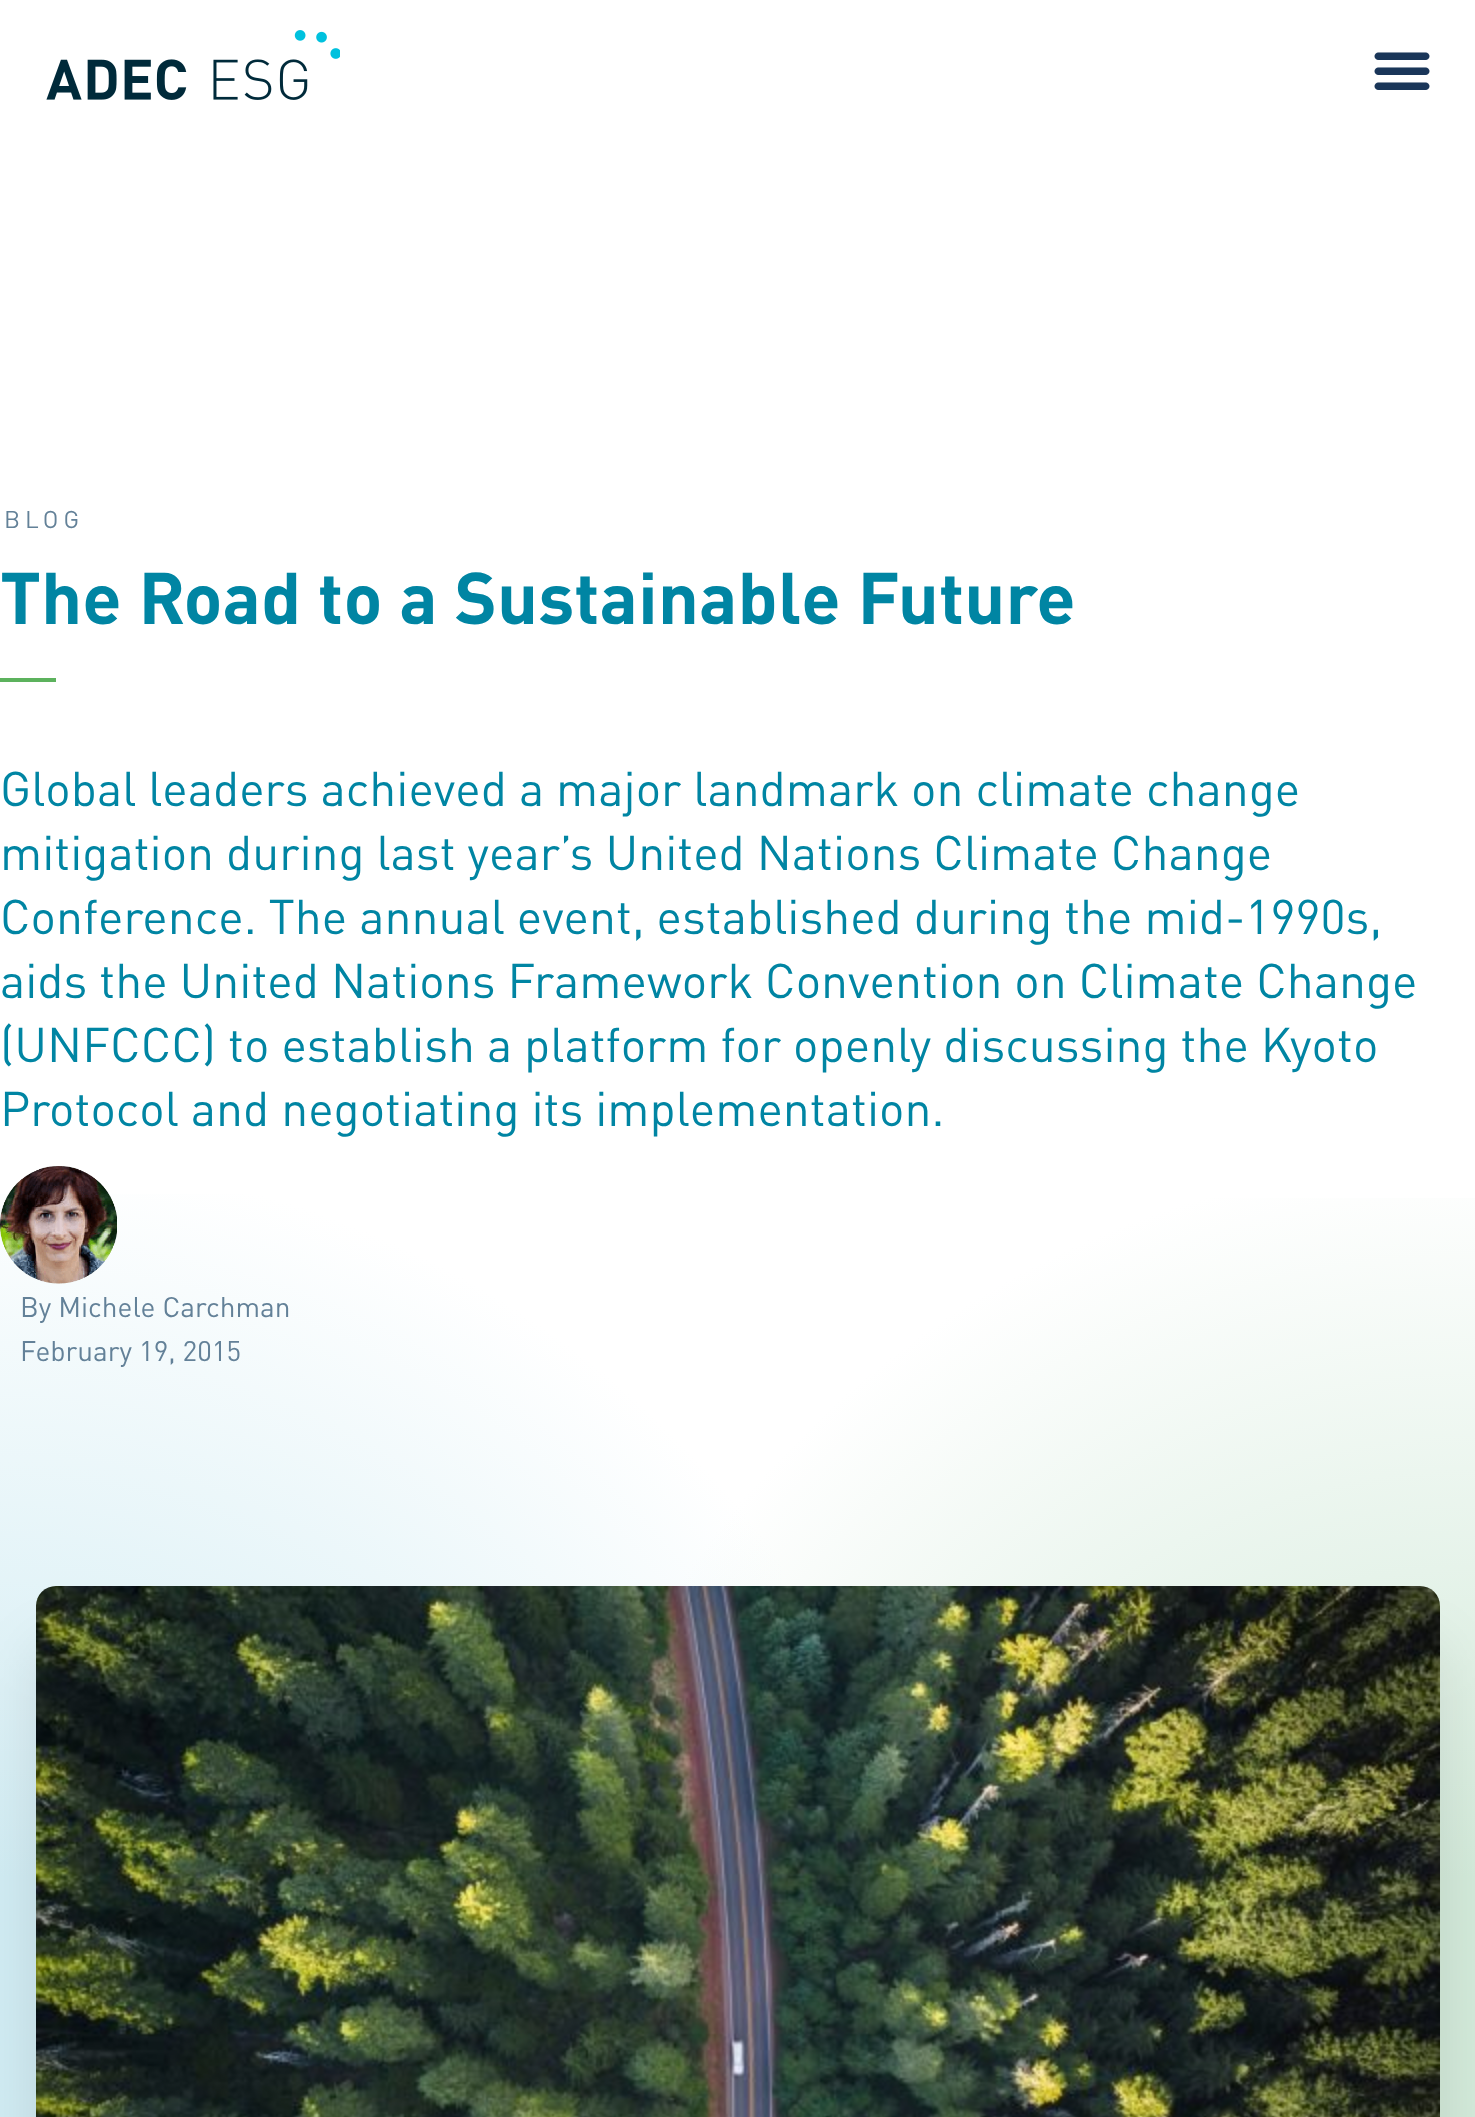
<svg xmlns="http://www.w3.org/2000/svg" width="1475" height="2117">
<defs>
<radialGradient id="g1" gradientUnits="userSpaceOnUse" cx="1476" cy="2118" r="1200"><stop offset="0.2" stop-color="#d3eada"/><stop offset="0.8" stop-color="#fff"/></radialGradient>
<radialGradient id="g2" gradientUnits="userSpaceOnUse" cx="0" cy="2118" r="1200"><stop offset="0.2" stop-color="#d1ecf3"/><stop offset="0.8" stop-color="#d1ecf3" stop-opacity="0"/></radialGradient>
</defs>
<rect width="100%" height="100%" fill="#fff"/>
<image x="46" y="30" width="294" height="70" href="media/1.png"/>
<image x="1374" y="52" width="56" height="38" href="media/2.png"/>
<text x="4" y="528" style="font-family:DIN;font-size:24px;letter-spacing:5px;fill:#638198">BLOG</text>
<text x="0" y="624" style="font-family:DIN;font-size:72px;font-weight:bold;fill:#0085a3">The Road to a Sustainable Future</text>
<rect y="678" width="56" height="4" fill="#5cb25d"/>
<text x="0" y="806" style="font-family:DIN;font-size:48px;fill:#0085a3">Global leaders achieved a major landmark on climate change</text>
<text x="0" y="870" style="font-family:DIN;font-size:48px;fill:#0085a3">mitigation during last year’s United Nations Climate Change</text>
<text x="0" y="934" style="font-family:DIN;font-size:48px;fill:#0085a3">Conference. The annual event, established during the mid-1990s,</text>
<text x="0" y="998" style="font-family:DIN;font-size:48px;fill:#0085a3">aids the United Nations Framework Convention on Climate Change</text>
<text x="0" y="1062" style="font-family:DIN;font-size:48px;fill:#0085a3">(UNFCCC) to establish a platform for openly discussing the Kyoto</text>
<text x="0" y="1126" style="font-family:DIN;font-size:48px;fill:#0085a3">Protocol and negotiating its implementation.</text>
<rect x="558" y="1198" width="917" height="919" fill="url(#g1)"/>
<rect y="1194" width="782" height="923" fill="url(#g2)"/>
<image x="0" y="1166" width="118" height="118" href="media/3.png"/>
<text x="20" y="1317" style="font-family:DIN;font-size:28px;fill:#638198">By Michele Carchman</text>
<text x="20" y="1361" style="font-family:DIN;font-size:28px;fill:#638198">February 19, 2015</text>
<rect x="36" y="1646" width="1404" height="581" rx="20" fill="#0000001a" filter="blur(30px)"/>
<image x="36" y="1586" width="1404" height="531" href="media/4.png"/>
</svg>
